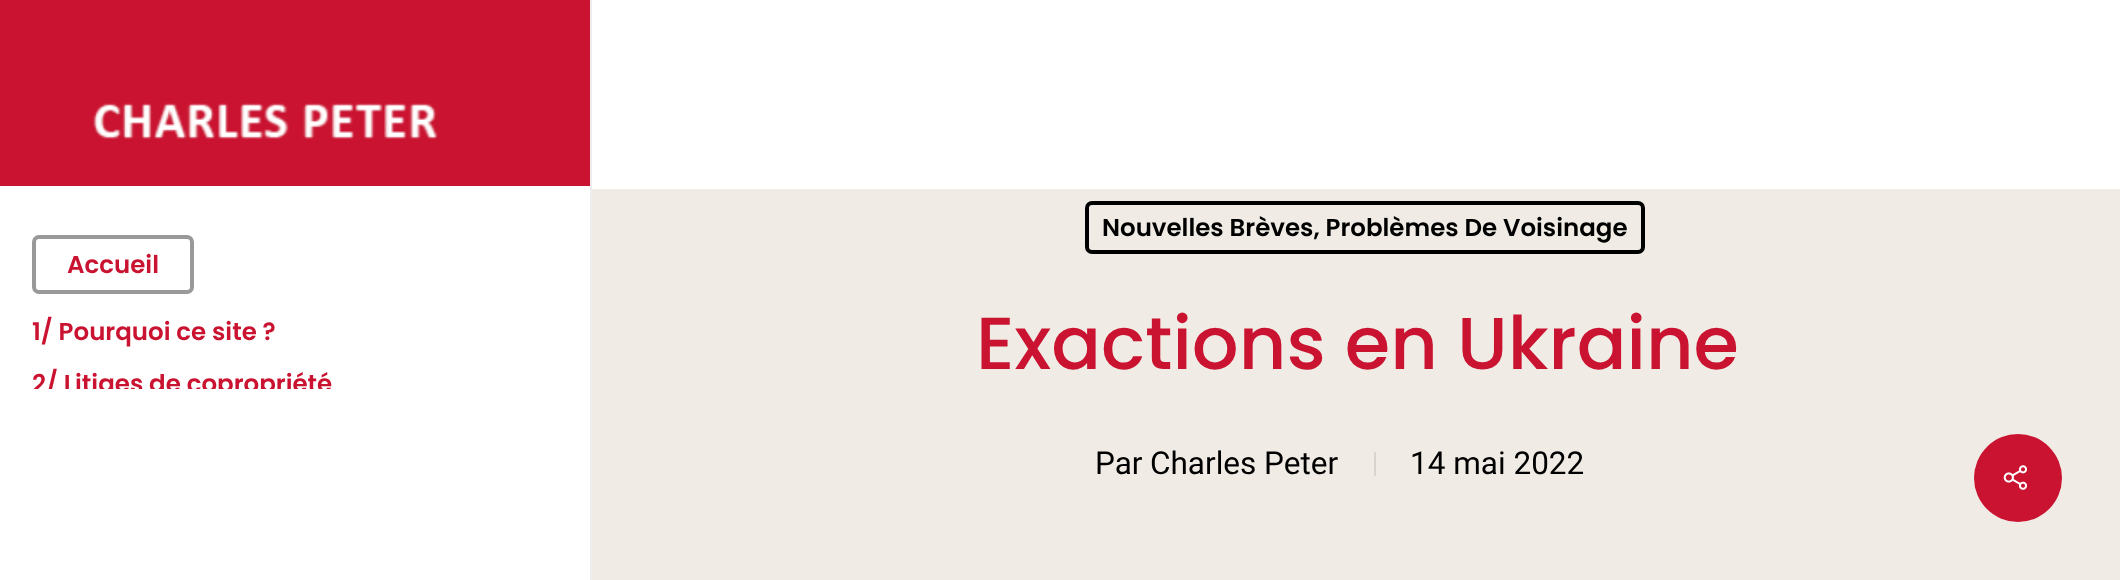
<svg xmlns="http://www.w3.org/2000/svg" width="2120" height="580">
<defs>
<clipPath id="clip1"><rect y="193" width="590" height="196"/></clipPath>
</defs>
<rect width="100%" height="100%" fill="#f0ece5"/>
<rect x="592" width="1528" height="189" fill="#fff"/>
<rect y="186" width="590" height="394" fill="#fff"/>
<rect x="590" width="2" height="580" fill="#ededed"/>
<rect width="590" height="186" fill="#ca1331"/>
<image x="93" y="103" width="345" height="36" href="media/1.png"/>
<rect x="34" y="237" width="158" height="55" rx="5" fill="none" stroke="#999" stroke-width="4"/>
<text x="67" y="273" style="font-family:Poppins;font-size:24.5px;font-weight:600;fill:#ca1331">Accueil</text>
<text x="32" y="340" style="font-family:Poppins;font-size:24.5px;font-weight:600;fill:#ca1331">1/ Pourquoi ce site ?</text>
<g clip-path="url(#clip1)">
<text x="32" y="392" style="font-family:Poppins;font-size:24.5px;font-weight:600;fill:#ca1331">2/ Litiges de copropriété</text>
</g>
<rect x="1087" y="203" width="556" height="49" rx="5" fill="none" stroke="#000" stroke-width="4"/>
<text x="1102" y="236" style="font-family:Poppins;font-size:24.5px;font-weight:600;fill:#000">Nouvelles Brèves, Problèmes De Voisinage</text>
<text x="976" y="369" style="font-family:Poppins;font-size:73.5px;font-weight:500;fill:#ca1331">Exactions en Ukraine</text>
<text x="1095" y="474" style="font-family:Roboto;font-size:31.5px;fill:#000">Par</text>
<text x="1150" y="474" style="font-family:Roboto;font-size:31.5px;fill:#000">Charles Peter</text>
<rect x="1374" y="452" width="2" height="24" fill="#d8d4ce"/>
<text x="1410" y="474" style="font-family:Roboto;font-size:31.5px;fill:#000">14 mai 2022</text>
<circle cx="2018" cy="478" r="44" fill="#ca1331"/>
<image x="2003" y="465" width="24" height="25" href="media/2.png"/>
</svg>
